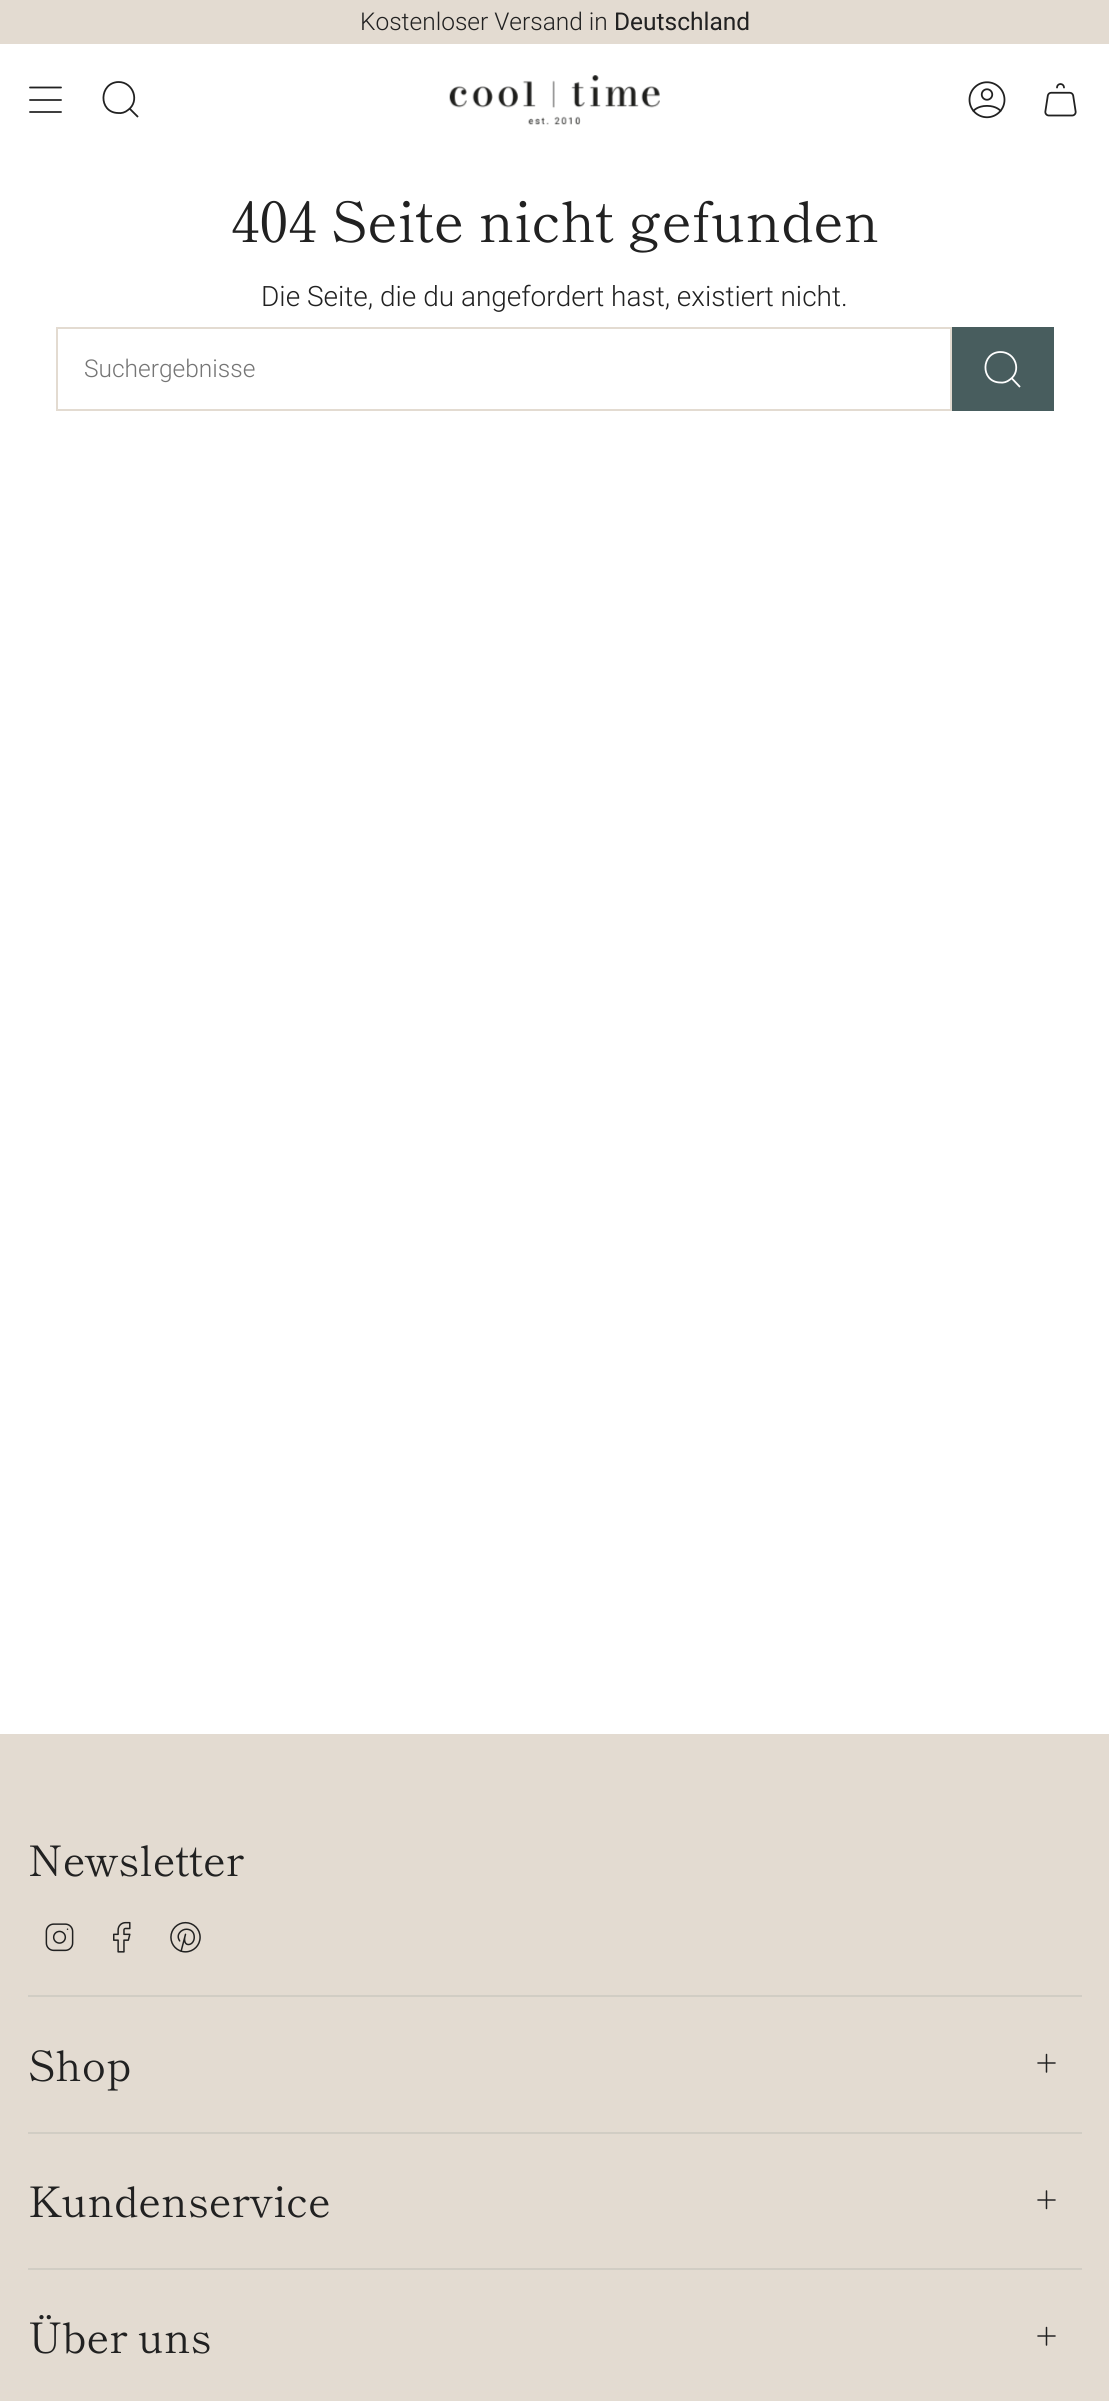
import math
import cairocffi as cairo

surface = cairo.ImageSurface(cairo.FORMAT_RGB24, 1109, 2401)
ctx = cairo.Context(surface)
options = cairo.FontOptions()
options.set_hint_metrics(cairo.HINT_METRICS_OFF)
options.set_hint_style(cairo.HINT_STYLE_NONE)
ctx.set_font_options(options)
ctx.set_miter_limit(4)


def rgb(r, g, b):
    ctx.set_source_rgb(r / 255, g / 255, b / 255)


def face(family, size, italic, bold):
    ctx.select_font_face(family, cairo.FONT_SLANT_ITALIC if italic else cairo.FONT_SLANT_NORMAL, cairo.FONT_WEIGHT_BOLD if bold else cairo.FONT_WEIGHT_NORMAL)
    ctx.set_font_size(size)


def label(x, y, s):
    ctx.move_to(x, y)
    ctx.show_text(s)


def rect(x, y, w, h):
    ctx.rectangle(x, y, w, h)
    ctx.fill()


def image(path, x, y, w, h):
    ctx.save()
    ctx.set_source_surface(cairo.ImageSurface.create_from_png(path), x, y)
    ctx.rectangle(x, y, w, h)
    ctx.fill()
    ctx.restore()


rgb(255, 255, 255)
ctx.paint()
rgb(227, 219, 209)
rect(0, 0, 1109, 44)
face('Roboto Light', 24.5, 0, 0)
rgb(33, 33, 33)
label(360, 30, 'Kostenloser Versand in')
face('Roboto', 24.5, 0, 0)
label(614, 30, 'Deutschland')
ctx.new_path()
ctx.move_to(30, 87.5)
ctx.line_to(61, 87.5)
ctx.move_to(30, 100)
ctx.line_to(61, 100)
ctx.move_to(30, 112)
ctx.line_to(61, 112)
ctx.set_line_width(1.8)
ctx.set_line_cap(cairo.LINE_CAP_ROUND)
ctx.set_line_join(cairo.LINE_JOIN_ROUND)
ctx.stroke()
ctx.new_path()
ctx.move_to(118.5, 82)
ctx.curve_to(133.5, 82, 140, 101.5, 128, 110)
ctx.curve_to(125, 112.5, 121.5, 113.5, 118, 113)
ctx.curve_to(98, 112.5, 99, 82.5, 118.5, 82)
ctx.close_path()
ctx.move_to(129.5, 108.5)
ctx.line_to(138, 117)
ctx.set_line_cap(cairo.LINE_CAP_BUTT)
ctx.set_line_join(cairo.LINE_JOIN_MITER)
ctx.stroke()
image('image0.png', 449, 75, 211, 50)
image('image1.png', 968, 81, 38, 38)
image('image2.png', 1044, 83, 33, 34)
face('Shippori Mincho', 56, 0, 0)
label(231, 242, '404 Seite nicht gefunden')
face('Roboto Light', 28, 0, 0)
label(261, 306, 'Die Seite, die du angefordert hast, existiert nicht.')
ctx.rectangle(57, 328, 894, 82)
rgb(227, 219, 209)
ctx.set_line_width(2)
ctx.stroke()
face('Roboto Light', 24.5, 0, 0)
rgb(117, 117, 117)
label(84, 377, 'Suchergebnisse')
rgb(72, 93, 94)
rect(952, 327, 102, 84)
ctx.new_path()
ctx.move_to(1000.5, 352)
ctx.curve_to(1015.5, 352, 1022, 371, 1010, 379.5)
ctx.curve_to(1007, 382, 1003.5, 383, 1000, 382.5)
ctx.curve_to(980, 382, 981, 352, 1000.5, 352)
ctx.close_path()
ctx.move_to(1011.5, 378)
ctx.line_to(1020, 387)
rgb(255, 255, 255)
ctx.set_line_width(1.8)
ctx.stroke()
rgb(227, 219, 209)
rect(0, 1734, 1109, 667)
face('Shippori Mincho', 42, 0, 0)
rgb(33, 33, 33)
label(28, 1876, 'Newsletter')
image('image3.png', 45, 1923, 29, 29)
image('image4.png', 113, 1921, 18, 32)
image('image5.png', 170, 1921, 31, 32)
rgb(209, 205, 196)
rect(28, 1995, 1054, 2)
rect(28, 2132, 1054, 2)
rgb(33, 33, 33)
label(28, 2081, 'Shop')
ctx.new_path()
ctx.move_to(1038, 2063)
ctx.line_to(1046.5, 2063)
ctx.move_to(1055, 2063)
ctx.line_to(1046.5, 2063)
ctx.move_to(1046.5, 2063)
ctx.line_to(1046.5, 2054.5)
ctx.move_to(1046.5, 2063)
ctx.line_to(1046.5, 2072)
ctx.set_line_width(1.5)
ctx.set_line_cap(cairo.LINE_CAP_ROUND)
ctx.set_line_join(cairo.LINE_JOIN_ROUND)
ctx.stroke()
rgb(209, 205, 196)
rect(28, 2268, 1054, 2)
rgb(33, 33, 33)
label(28, 2217, 'Kundenservice')
ctx.new_path()
ctx.move_to(1038, 2200)
ctx.line_to(1046.5, 2200)
ctx.move_to(1055, 2200)
ctx.line_to(1046.5, 2200)
ctx.move_to(1046.5, 2200)
ctx.line_to(1046.5, 2191)
ctx.move_to(1046.5, 2200)
ctx.line_to(1046.5, 2208.5)
ctx.stroke()
label(28, 2353, 'Über uns')
ctx.new_path()
ctx.move_to(1038, 2336)
ctx.line_to(1046.5, 2336)
ctx.move_to(1055, 2336)
ctx.line_to(1046.5, 2336)
ctx.move_to(1046.5, 2336)
ctx.line_to(1046.5, 2327.5)
ctx.move_to(1046.5, 2336)
ctx.line_to(1046.5, 2345)
ctx.stroke()
surface.write_to_png('render.png')
